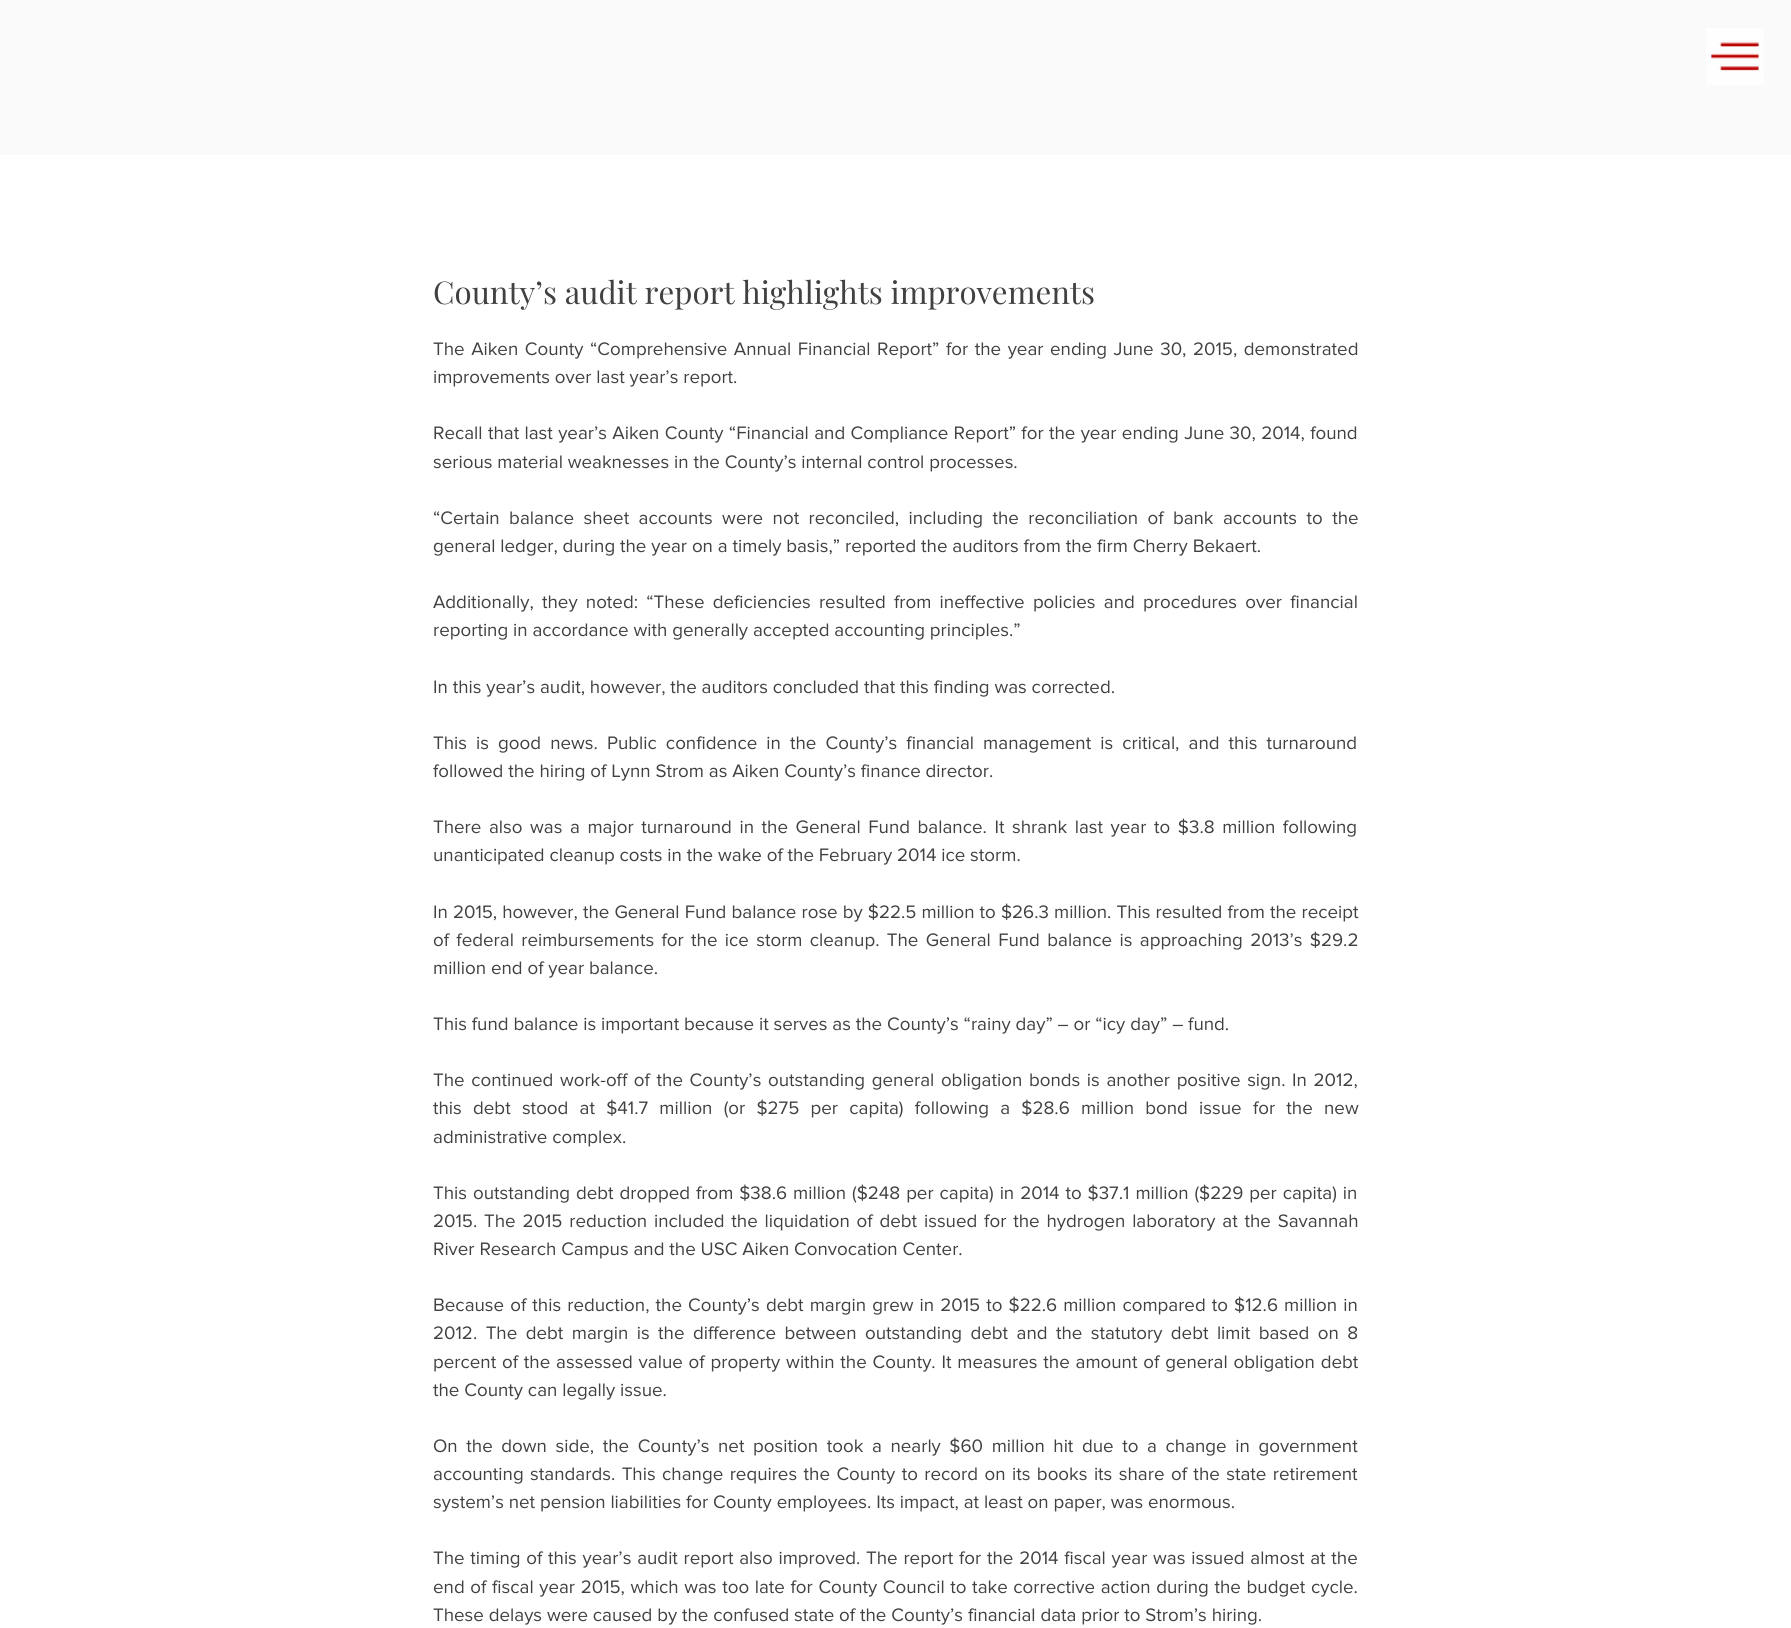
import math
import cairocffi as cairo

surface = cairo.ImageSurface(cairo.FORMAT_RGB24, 1791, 1628)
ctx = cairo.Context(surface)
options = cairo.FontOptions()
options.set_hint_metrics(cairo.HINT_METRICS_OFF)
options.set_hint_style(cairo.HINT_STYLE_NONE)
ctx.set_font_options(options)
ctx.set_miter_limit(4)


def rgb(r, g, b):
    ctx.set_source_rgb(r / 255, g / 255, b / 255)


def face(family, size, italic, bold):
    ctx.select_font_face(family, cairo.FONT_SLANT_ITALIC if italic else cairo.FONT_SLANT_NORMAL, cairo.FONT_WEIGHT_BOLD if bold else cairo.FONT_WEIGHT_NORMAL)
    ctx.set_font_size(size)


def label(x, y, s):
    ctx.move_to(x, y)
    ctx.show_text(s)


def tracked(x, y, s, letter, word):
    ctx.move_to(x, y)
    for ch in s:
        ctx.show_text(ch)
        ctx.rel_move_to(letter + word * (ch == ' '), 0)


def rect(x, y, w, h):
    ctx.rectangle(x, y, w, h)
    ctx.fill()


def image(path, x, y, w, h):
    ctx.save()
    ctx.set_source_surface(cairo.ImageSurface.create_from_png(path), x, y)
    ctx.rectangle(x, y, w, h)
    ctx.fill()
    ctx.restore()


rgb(255, 255, 255)
ctx.paint()
rgb(250, 250, 250)
rect(0, 0, 1791, 155)
image('image0.png', 1706, 28, 58, 57)
face('Playfair Display', 31.25, 0, 0)
rgb(65, 65, 65)
label(433, 304, 'County’s audit report highlights improvements')
face('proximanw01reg', 18.75, 0, 0)
tracked(433, 355, 'The Aiken County “Comprehensive Annual Financial Report” for the year ending June 30, 2015, demonstrated', 0, 1.7)
label(433, 383, 'improvements over last year’s report.')
tracked(433, 439, 'Recall that last year’s Aiken County “Financial and Compliance Report” for the year ending June 30, 2014, found', 0, 0.5)
label(433, 468, 'serious material weaknesses in the County’s internal control processes.')
tracked(433, 524, '“Certain balance sheet accounts were not reconciled, including the reconciliation of bank accounts to the', 0, 4.6)
label(433, 552, 'general ledger, during the year on a timely basis,” reported the auditors from the firm Cherry Bekaert.')
tracked(433, 608, 'Additionally, they noted: “These deficiencies resulted from ineffective policies and procedures over financial', 0, 3.4)
label(433, 636, 'reporting in accordance with generally accepted accounting principles.”')
label(433, 693, 'In this year’s audit, however, the auditors concluded that this finding was corrected.')
tracked(433, 749, 'This is good news. Public confidence in the County’s financial management is critical, and this turnaround', 0, 4.25)
label(433, 777, 'followed the hiring of Lynn Strom as Aiken County’s finance director.')
tracked(433, 833, 'There also was a major turnaround in the General Fund balance. It shrank last year to $3.8 million following', 0, 2.75)
label(433, 861, 'unanticipated cleanup costs in the wake of the February 2014 ice storm.')
tracked(433, 918, 'In 2015, however, the General Fund balance rose by $22.5 million to $26.3 million. This resulted from the receipt', 0, 0.25)
tracked(433, 946, 'of federal reimbursements for the ice storm cleanup. The General Fund balance is approaching 2013’s $29.2', 0, 2.5)
label(433, 974, 'million end of year balance.')
label(433, 1030, 'This fund balance is important because it serves as the County’s “rainy day” – or “icy day” – fund.')
tracked(433, 1086, 'The continued work-off of the County’s outstanding general obligation bonds is another positive sign. In 2012,', 0, 1.8)
tracked(433, 1114, 'this debt stood at $41.7 million (or $275 per capita) following a $28.6 million bond issue for the new', 0, 6.4)
label(433, 1143, 'administrative complex.')
tracked(433, 1199, 'This outstanding debt dropped from $38.6 million ($248 per capita) in 2014 to $37.1 million ($229 per capita) in', 0, 1.1)
tracked(433, 1227, '2015. The 2015 reduction included the liquidation of debt issued for the hydrogen laboratory at the Savannah', 0, 2)
label(433, 1255, 'River Research Campus and the USC Aiken Convocation Center.')
tracked(433, 1311, 'Because of this reduction, the County’s debt margin grew in 2015 to $22.6 million compared to $12.6 million in', 0, 1.25)
tracked(433, 1339, '2012. The debt margin is the difference between outstanding debt and the statutory debt limit based on 8', 0, 3.6)
tracked(433, 1368, 'percent of the assessed value of property within the County. It measures the amount of general obligation debt', 0, 1)
label(433, 1396, 'the County can legally issue.')
tracked(433, 1452, 'On the down side, the County’s net position took a nearly $60 million hit due to a change in government', 0, 3.75)
tracked(433, 1480, 'accounting standards. This change requires the County to record on its books its share of the state retirement', 0, 1.6)
label(433, 1508, 'system’s net pension liabilities for County employees. Its impact, at least on paper, was enormous.')
tracked(433, 1564, 'The timing of this year’s audit report also improved. The report for the 2014 fiscal year was issued almost at the', 0, 0.9)
tracked(433, 1593, 'end of fiscal year 2015, which was too late for County Council to take corrective action during the budget cycle.', 0, 0.8)
label(433, 1621, 'These delays were caused by the confused state of the County’s financial data prior to Strom’s hiring.')
surface.write_to_png('render.png')
